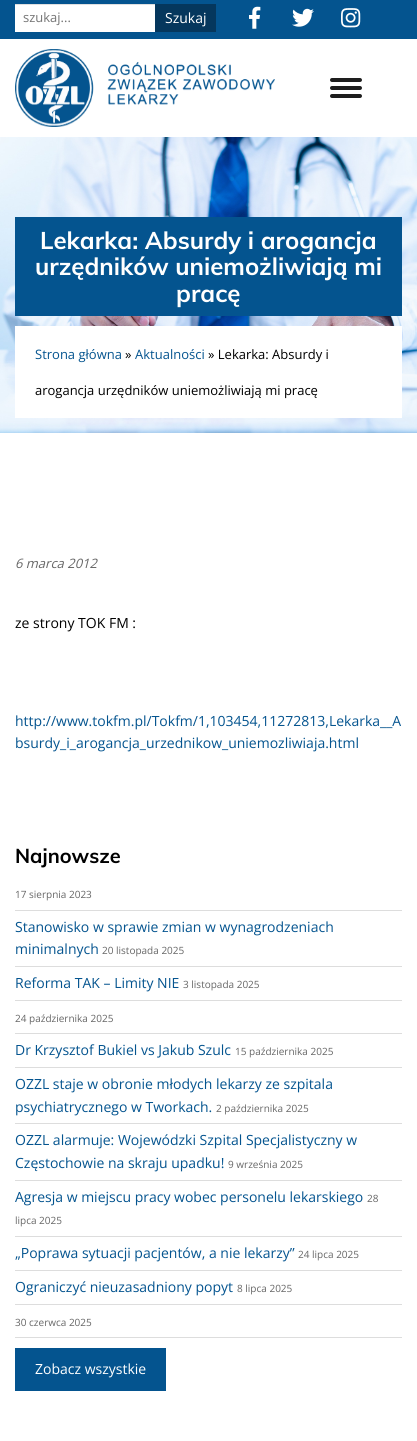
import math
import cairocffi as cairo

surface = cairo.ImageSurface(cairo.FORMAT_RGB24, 417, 1441)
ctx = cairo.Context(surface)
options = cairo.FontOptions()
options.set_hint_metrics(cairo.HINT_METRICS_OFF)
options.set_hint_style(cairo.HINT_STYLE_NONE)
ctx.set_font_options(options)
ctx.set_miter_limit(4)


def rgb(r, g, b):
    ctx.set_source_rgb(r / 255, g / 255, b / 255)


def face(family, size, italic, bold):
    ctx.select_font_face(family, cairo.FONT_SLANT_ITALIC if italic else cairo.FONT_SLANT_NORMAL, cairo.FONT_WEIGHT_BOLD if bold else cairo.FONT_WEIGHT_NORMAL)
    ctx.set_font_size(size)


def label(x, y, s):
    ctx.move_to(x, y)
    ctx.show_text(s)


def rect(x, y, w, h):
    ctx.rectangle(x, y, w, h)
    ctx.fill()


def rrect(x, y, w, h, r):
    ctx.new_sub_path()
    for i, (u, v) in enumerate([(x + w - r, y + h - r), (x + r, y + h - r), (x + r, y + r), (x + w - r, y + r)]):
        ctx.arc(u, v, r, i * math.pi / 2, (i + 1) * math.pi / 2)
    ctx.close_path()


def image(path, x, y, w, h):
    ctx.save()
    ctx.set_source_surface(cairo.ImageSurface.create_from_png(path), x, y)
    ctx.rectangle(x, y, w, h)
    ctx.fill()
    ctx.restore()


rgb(255, 255, 255)
ctx.paint()
rgb(4, 84, 143)
rect(0, 0, 417, 39)
rgb(255, 255, 255)
rect(15, 5, 140, 27)
rgb(223, 223, 223)
rect(15, 4, 140, 1)
face('Open Sans', 13, 0, 0)
rgb(117, 117, 117)
label(23, 22, 'szukaj...')
rgb(5, 55, 93)
rect(155, 4, 61, 28)
face('Open Sans', 14, 0, 0)
rgb(255, 255, 255)
label(165, 23, 'Szukaj')
image('image0.png', 249, 6, 12, 23)
image('image1.png', 292, 8, 22, 19)
image('image2.png', 341, 8, 20, 20)
image('image3.png', 15, 49, 260, 78)
rgb(30, 30, 30)
rrect(330, 78, 32, 4, 2)
ctx.fill()
rrect(330, 86, 32, 4, 2)
ctx.fill()
rrect(330, 94, 32, 4, 2)
ctx.fill()
image('image4.png', 0, 137, 417, 296)
rgb(4, 84, 143)
rect(15, 217, 387, 99)
face('Muli', 24, 0, 1)
rgb(255, 255, 255)
label(40, 249, 'Lekarka: Absurdy i arogancja')
label(35, 275, 'urzędników uniemożliwiają mi')
label(176, 302, 'pracę')
rect(15, 326, 387, 92)
face('Open Sans', 13, 0, 0)
rgb(4, 84, 143)
label(35, 359, 'Strona główna')
rgb(0, 0, 0)
label(125, 359, '»')
rgb(4, 84, 143)
label(135, 359, 'Aktualności')
rgb(0, 0, 0)
label(208, 359, '» Lekarka: Absurdy i')
label(35, 395, 'arogancja urzędników uniemożliwiają mi pracę')
face('Open Sans', 13, 1, 0)
rgb(102, 102, 102)
label(15, 568, '6 marca 2012')
face('Open Sans', 14, 0, 0)
rgb(0, 0, 0)
label(15, 628, 'ze strony TOK FM :')
rgb(4, 84, 143)
label(15, 726, 'http://www.tokfm.pl/Tokfm/1,103454,11272813,Lekarka__A')
label(15, 748, 'bsurdy_i_arogancja_urzednikow_uniemozliwiaja.html')
face('Muli', 20, 0, 1)
rgb(0, 0, 0)
label(15, 863, 'Najnowsze')
rgb(221, 221, 221)
rect(15, 910, 387, 1)
face('Open Sans', 10, 0, 0)
rgb(102, 102, 102)
label(15, 898, '17 sierpnia 2023')
rgb(221, 221, 221)
rect(15, 966, 387, 1)
face('Open Sans', 14, 0, 0)
rgb(4, 84, 143)
label(15, 932, 'Stanowisko w sprawie zmian w wynagrodzeniach')
label(15, 954, 'minimalnych')
face('Open Sans', 10, 0, 0)
rgb(102, 102, 102)
label(102, 954, '20 listopada 2025')
rgb(221, 221, 221)
rect(15, 1000, 387, 1)
face('Open Sans', 14, 0, 0)
rgb(4, 84, 143)
label(15, 988, 'Reforma TAK – Limity NIE')
face('Open Sans', 10, 0, 0)
rgb(102, 102, 102)
label(183, 988, '3 listopada 2025')
rgb(221, 221, 221)
rect(15, 1033, 387, 1)
rgb(102, 102, 102)
label(15, 1022, '24 października 2025')
rgb(221, 221, 221)
rect(15, 1067, 387, 1)
face('Open Sans', 14, 0, 0)
rgb(4, 84, 143)
label(15, 1055, 'Dr Krzysztof Bukiel vs Jakub Szulc')
face('Open Sans', 10, 0, 0)
rgb(102, 102, 102)
label(235, 1055, '15 października 2025')
rgb(221, 221, 221)
rect(15, 1123, 387, 1)
face('Open Sans', 14, 0, 0)
rgb(4, 84, 143)
label(15, 1089, 'OZZL staje w obronie młodych lekarzy ze szpitala')
label(15, 1112, 'psychiatrycznego w Tworkach.')
face('Open Sans', 10, 0, 0)
rgb(102, 102, 102)
label(216, 1112, '2 października 2025')
rgb(221, 221, 221)
rect(15, 1180, 387, 1)
face('Open Sans', 14, 0, 0)
rgb(4, 84, 143)
label(15, 1145, 'OZZL alarmuje: Wojewódzki Szpital Specjalistyczny w')
label(15, 1168, 'Częstochowie na skraju upadku!')
face('Open Sans', 10, 0, 0)
rgb(102, 102, 102)
label(228, 1168, '9 września 2025')
rgb(221, 221, 221)
rect(15, 1236, 387, 1)
face('Open Sans', 14, 0, 0)
rgb(4, 84, 143)
label(15, 1202, 'Agresja w miejscu pracy wobec personelu lekarskiego')
face('Open Sans', 10, 0, 0)
rgb(102, 102, 102)
label(367, 1202, '28')
label(15, 1224, 'lipca 2025')
rgb(221, 221, 221)
rect(15, 1270, 387, 1)
face('Open Sans', 14, 0, 0)
rgb(4, 84, 143)
label(15, 1258, '„Poprawa sytuacji pacjentów, a nie lekarzy”')
face('Open Sans', 10, 0, 0)
rgb(102, 102, 102)
label(298, 1258, '24 lipca 2025')
rgb(221, 221, 221)
rect(15, 1304, 387, 1)
face('Open Sans', 14, 0, 0)
rgb(4, 84, 143)
label(15, 1292, 'Ograniczyć nieuzasadniony popyt')
face('Open Sans', 10, 0, 0)
rgb(102, 102, 102)
label(237, 1292, '8 lipca 2025')
rgb(221, 221, 221)
rect(15, 1337, 387, 1)
rgb(102, 102, 102)
label(15, 1326, '30 czerwca 2025')
rgb(4, 84, 143)
rect(15, 1348, 151, 43)
face('Open Sans', 14, 0, 0)
rgb(255, 255, 255)
label(35, 1374, 'Zobacz wszystkie')
surface.write_to_png('render.png')
